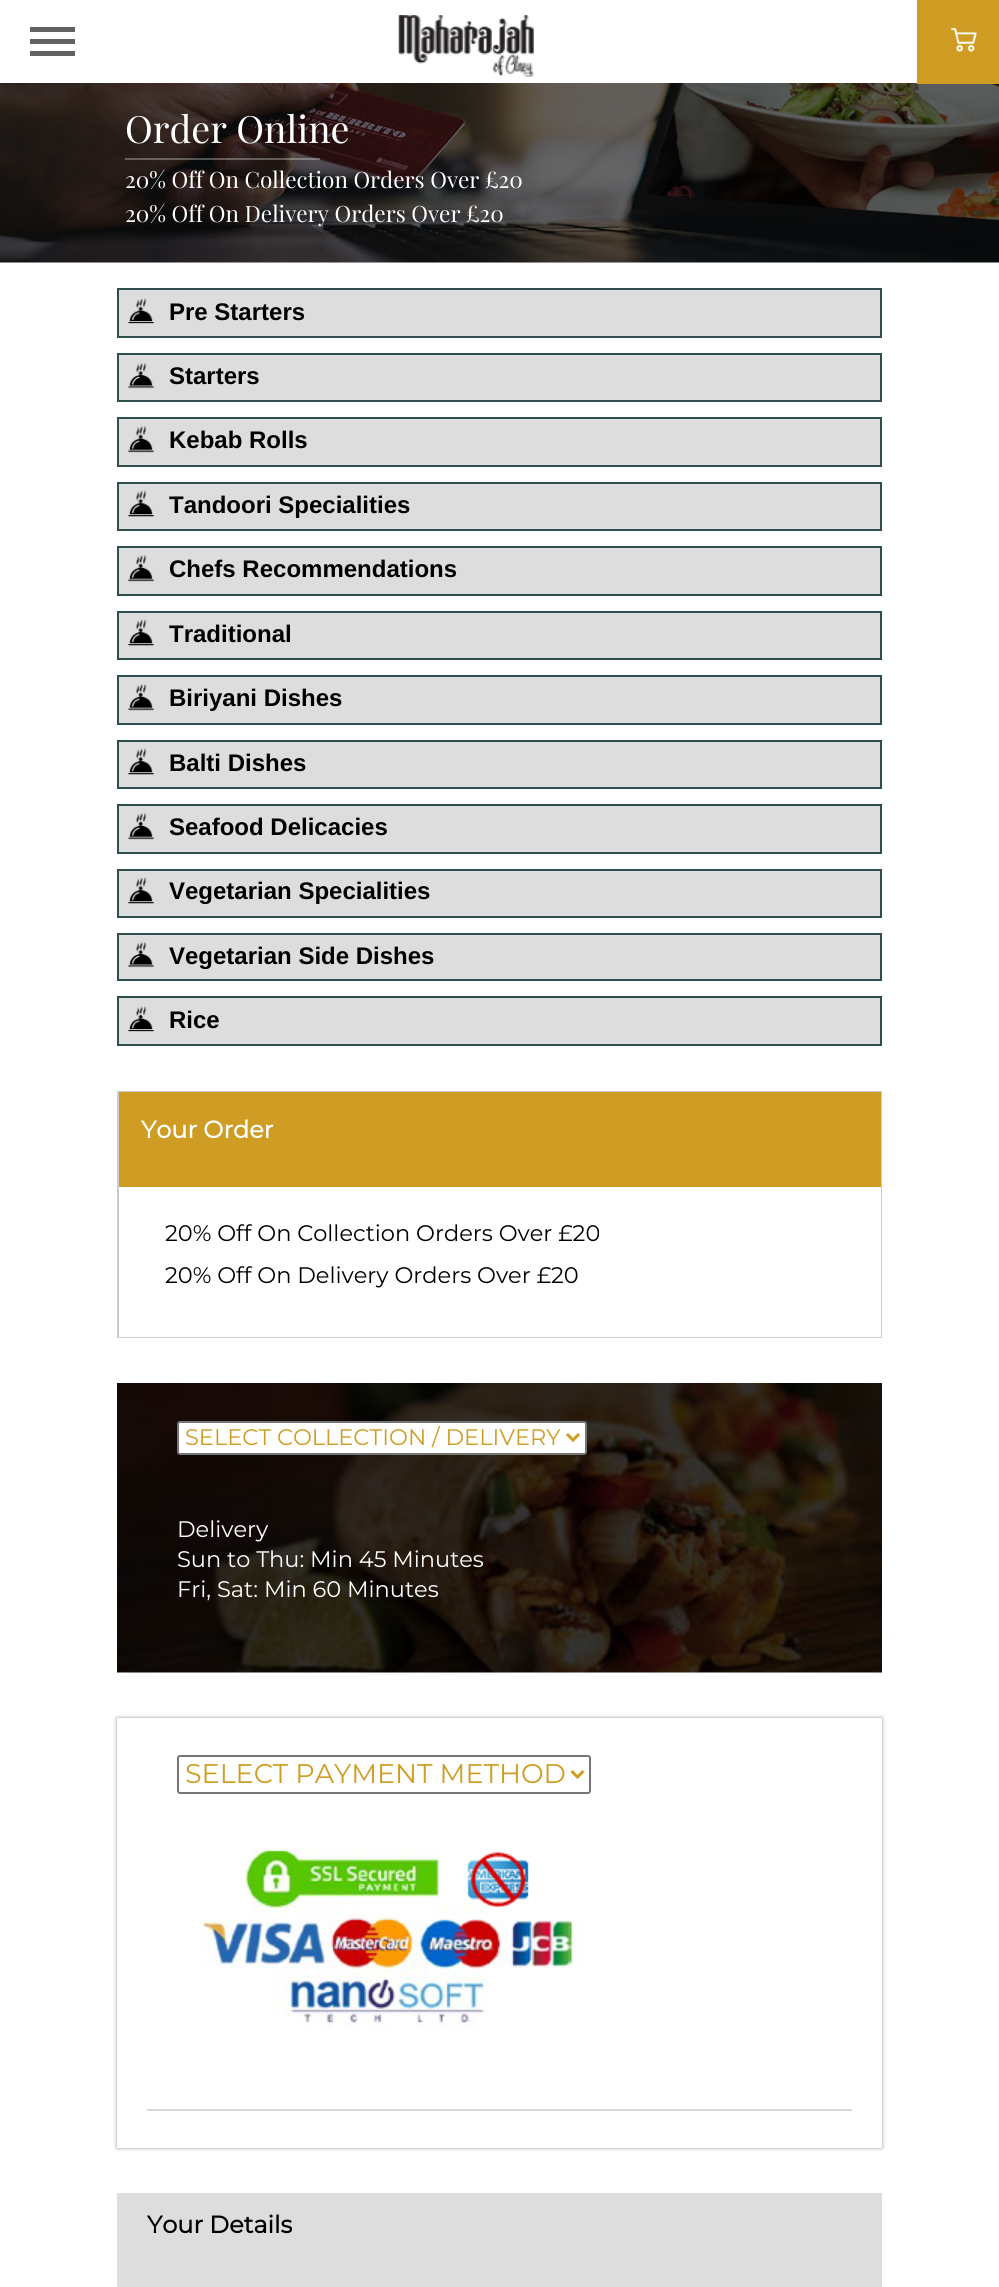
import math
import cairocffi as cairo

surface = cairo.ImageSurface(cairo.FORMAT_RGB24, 999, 2287)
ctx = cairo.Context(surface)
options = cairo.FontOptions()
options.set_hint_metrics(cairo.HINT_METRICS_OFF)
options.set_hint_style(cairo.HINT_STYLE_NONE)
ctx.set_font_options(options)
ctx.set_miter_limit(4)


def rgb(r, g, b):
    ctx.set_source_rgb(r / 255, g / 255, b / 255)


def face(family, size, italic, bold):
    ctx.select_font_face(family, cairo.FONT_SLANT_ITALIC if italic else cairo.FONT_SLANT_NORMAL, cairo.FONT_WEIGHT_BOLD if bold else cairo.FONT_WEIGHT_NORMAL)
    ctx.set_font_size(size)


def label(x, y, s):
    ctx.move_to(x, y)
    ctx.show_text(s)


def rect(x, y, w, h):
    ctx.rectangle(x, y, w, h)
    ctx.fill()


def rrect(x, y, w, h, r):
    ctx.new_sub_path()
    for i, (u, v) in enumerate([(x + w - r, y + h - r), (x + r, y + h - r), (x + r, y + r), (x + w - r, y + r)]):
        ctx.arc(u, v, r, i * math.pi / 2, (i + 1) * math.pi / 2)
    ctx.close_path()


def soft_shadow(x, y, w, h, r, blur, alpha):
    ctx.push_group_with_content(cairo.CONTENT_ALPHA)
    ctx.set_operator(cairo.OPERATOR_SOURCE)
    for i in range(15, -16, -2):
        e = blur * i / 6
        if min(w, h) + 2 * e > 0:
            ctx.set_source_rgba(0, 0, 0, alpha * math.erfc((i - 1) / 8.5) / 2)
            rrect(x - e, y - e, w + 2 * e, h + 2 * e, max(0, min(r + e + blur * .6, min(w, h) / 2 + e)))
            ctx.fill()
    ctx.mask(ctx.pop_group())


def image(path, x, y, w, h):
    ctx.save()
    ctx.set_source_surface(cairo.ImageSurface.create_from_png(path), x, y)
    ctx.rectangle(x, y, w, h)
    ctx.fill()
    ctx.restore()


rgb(255, 255, 255)
ctx.paint()
rgb(97, 97, 96)
rect(30, 27, 45, 5)
rect(30, 39, 45, 5)
rect(30, 51, 45, 5)
image('image0.png', 398, 15, 136, 62)
image('image2.png', 0, 83, 999, 180)
rgb(207, 157, 36)
rect(917, 0, 82, 84)
image('image1.png', 951, 27, 26, 25)
face('Playfair Display', 37.5, 0, 0)
rgb(255, 255, 255)
label(125, 143, 'Order Online')
ctx.set_source_rgba(1, 1, 1, 0.3)
rect(125, 158, 195, 2)
face('Playfair Display', 22.5, 0, 0)
rgb(255, 255, 255)
label(125, 188, '20% Off On Collection Orders Over £20')
label(125, 222, '20% Off On Delivery Orders Over £20')
rgb(221, 221, 221)
ctx.rectangle(118, 289, 763, 48)
ctx.fill_preserve()
rgb(47, 79, 79)
ctx.stroke()
image('image3.png', 128, 298, 27, 26)
face('Liberation Sans', 24, 0, 1)
rgb(0, 0, 0)
label(169, 320, 'Pre Starters')
rgb(221, 221, 221)
ctx.rectangle(118, 354, 763, 47)
ctx.fill_preserve()
rgb(47, 79, 79)
ctx.stroke()
image('image4.png', 128, 363, 26, 26)
rgb(0, 0, 0)
label(169, 384, 'Starters')
rgb(221, 221, 221)
ctx.rectangle(118, 418, 763, 48)
ctx.fill_preserve()
rgb(47, 79, 79)
ctx.stroke()
image('image5.png', 128, 426, 27, 27)
rgb(0, 0, 0)
label(169, 448, 'Kebab Rolls')
rgb(221, 221, 221)
ctx.rectangle(118, 483, 763, 47)
ctx.fill_preserve()
rgb(47, 79, 79)
ctx.stroke()
image('image6.png', 128, 490, 27, 27)
rgb(0, 0, 0)
label(169, 513, 'Tandoori Specialities')
rgb(221, 221, 221)
ctx.rectangle(118, 547, 763, 48)
ctx.fill_preserve()
rgb(47, 79, 79)
ctx.stroke()
image('image5.png', 128, 555, 27, 27)
rgb(0, 0, 0)
label(169, 577, 'Chefs Recommendations')
rgb(221, 221, 221)
ctx.rectangle(118, 612, 763, 47)
ctx.fill_preserve()
rgb(47, 79, 79)
ctx.stroke()
image('image6.png', 128, 619, 27, 27)
rgb(0, 0, 0)
label(169, 642, 'Traditional')
rgb(221, 221, 221)
ctx.rectangle(118, 676, 763, 48)
ctx.fill_preserve()
rgb(47, 79, 79)
ctx.stroke()
image('image5.png', 128, 684, 27, 27)
rgb(0, 0, 0)
label(169, 706, 'Biriyani Dishes')
rgb(221, 221, 221)
ctx.rectangle(118, 741, 763, 47)
ctx.fill_preserve()
rgb(47, 79, 79)
ctx.stroke()
image('image6.png', 128, 748, 27, 27)
rgb(0, 0, 0)
label(169, 771, 'Balti Dishes')
rgb(221, 221, 221)
ctx.rectangle(118, 805, 763, 48)
ctx.fill_preserve()
rgb(47, 79, 79)
ctx.stroke()
image('image5.png', 128, 813, 27, 27)
rgb(0, 0, 0)
label(169, 835, 'Seafood Delicacies')
rgb(221, 221, 221)
ctx.rectangle(118, 870, 763, 47)
ctx.fill_preserve()
rgb(47, 79, 79)
ctx.stroke()
image('image6.png', 128, 877, 27, 27)
rgb(0, 0, 0)
label(169, 899, 'Vegetarian Specialities')
rgb(221, 221, 221)
ctx.rectangle(118, 934, 763, 46)
ctx.fill_preserve()
rgb(47, 79, 79)
ctx.stroke()
image('image4.png', 128, 942, 26, 26)
rgb(0, 0, 0)
label(169, 964, 'Vegetarian Side Dishes')
rgb(221, 221, 221)
ctx.rectangle(118, 997, 763, 48)
ctx.fill_preserve()
rgb(47, 79, 79)
ctx.stroke()
image('image3.png', 128, 1006, 27, 26)
rgb(0, 0, 0)
label(169, 1028, 'Rice')
ctx.rectangle(118, 1092, 763, 245)
rgb(204, 204, 204)
ctx.stroke()
rgb(207, 157, 36)
rect(119, 1092, 762, 95)
face('Montserrat', 24, 0, 1)
rgb(255, 255, 255)
label(141, 1138, 'Your Order')
rect(119, 1187, 762, 150)
face('Montserrat Thin', 22.5, 0, 0)
rgb(0, 0, 0)
label(165, 1241, '20% Off On Collection Orders Over £20')
label(165, 1283, '20% Off On Delivery Orders Over £20')
image('image7.png', 117, 1383, 765, 290)
rgb(255, 255, 255)
rrect(178, 1422, 408, 32, 2)
ctx.fill_preserve()
rgb(118, 118, 118)
ctx.stroke()
ctx.new_path()
ctx.move_to(567, 1434)
ctx.line_to(573, 1440)
ctx.line_to(579, 1434)
rgb(207, 157, 36)
ctx.set_line_width(3)
ctx.stroke()
label(185, 1445, 'SELECT COLLECTION / DELIVERY')
rgb(255, 255, 255)
label(177, 1537, 'Delivery')
label(177, 1567, 'Sun to Thu: Min 45 Minutes')
label(177, 1597, 'Fri, Sat: Min 60 Minutes')
ctx.save()
ctx.set_fill_rule(cairo.FILL_RULE_EVEN_ODD)
ctx.new_path()
ctx.move_to(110, 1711)
ctx.line_to(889, 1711)
ctx.line_to(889, 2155)
ctx.line_to(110, 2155)
ctx.close_path()
ctx.move_to(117, 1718)
ctx.line_to(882, 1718)
ctx.line_to(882, 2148)
ctx.line_to(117, 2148)
ctx.close_path()
ctx.clip()
rgb(156, 156, 156)
soft_shadow(117, 1718, 765, 430, 0, 2, 1)
ctx.restore()
rgb(216, 216, 216)
rect(147, 2109, 705, 2)
rrect(178, 1756, 412, 37, 2)
rgb(118, 118, 118)
ctx.set_line_width(2)
ctx.stroke()
ctx.new_path()
ctx.move_to(571.5, 1771)
ctx.line_to(577.5, 1777)
ctx.line_to(583.5, 1771)
rgb(207, 157, 36)
ctx.set_line_width(3)
ctx.stroke()
face('Montserrat Thin', 27, 0, 0)
label(185, 1783, 'SELECT PAYMENT METHOD')
image('image8.png', 201, 1848, 384, 184)
rgb(221, 221, 221)
rect(117, 2193, 765, 94)
face('Montserrat', 24, 0, 1)
rgb(0, 0, 0)
label(147, 2233, 'Your Details')
surface.write_to_png('render.png')
